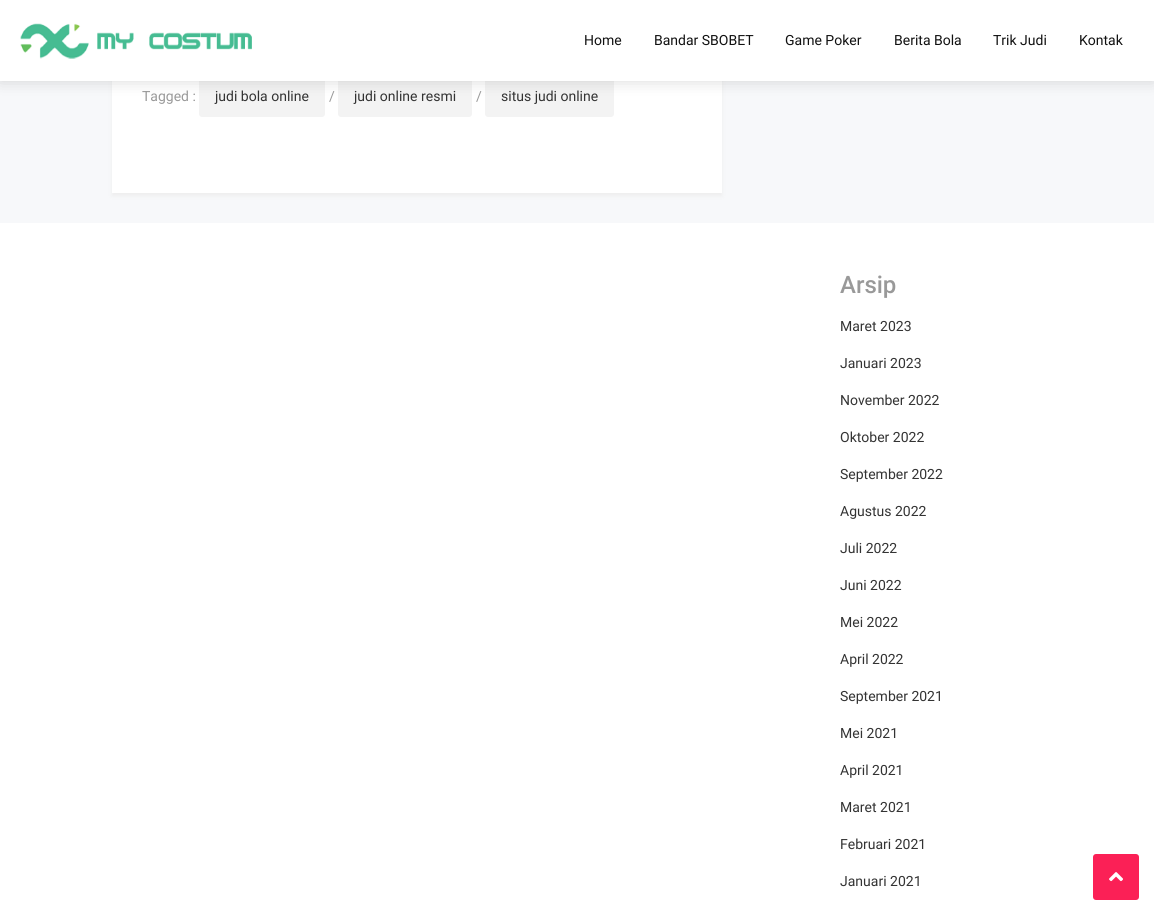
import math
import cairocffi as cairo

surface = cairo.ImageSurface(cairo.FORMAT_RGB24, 1154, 915)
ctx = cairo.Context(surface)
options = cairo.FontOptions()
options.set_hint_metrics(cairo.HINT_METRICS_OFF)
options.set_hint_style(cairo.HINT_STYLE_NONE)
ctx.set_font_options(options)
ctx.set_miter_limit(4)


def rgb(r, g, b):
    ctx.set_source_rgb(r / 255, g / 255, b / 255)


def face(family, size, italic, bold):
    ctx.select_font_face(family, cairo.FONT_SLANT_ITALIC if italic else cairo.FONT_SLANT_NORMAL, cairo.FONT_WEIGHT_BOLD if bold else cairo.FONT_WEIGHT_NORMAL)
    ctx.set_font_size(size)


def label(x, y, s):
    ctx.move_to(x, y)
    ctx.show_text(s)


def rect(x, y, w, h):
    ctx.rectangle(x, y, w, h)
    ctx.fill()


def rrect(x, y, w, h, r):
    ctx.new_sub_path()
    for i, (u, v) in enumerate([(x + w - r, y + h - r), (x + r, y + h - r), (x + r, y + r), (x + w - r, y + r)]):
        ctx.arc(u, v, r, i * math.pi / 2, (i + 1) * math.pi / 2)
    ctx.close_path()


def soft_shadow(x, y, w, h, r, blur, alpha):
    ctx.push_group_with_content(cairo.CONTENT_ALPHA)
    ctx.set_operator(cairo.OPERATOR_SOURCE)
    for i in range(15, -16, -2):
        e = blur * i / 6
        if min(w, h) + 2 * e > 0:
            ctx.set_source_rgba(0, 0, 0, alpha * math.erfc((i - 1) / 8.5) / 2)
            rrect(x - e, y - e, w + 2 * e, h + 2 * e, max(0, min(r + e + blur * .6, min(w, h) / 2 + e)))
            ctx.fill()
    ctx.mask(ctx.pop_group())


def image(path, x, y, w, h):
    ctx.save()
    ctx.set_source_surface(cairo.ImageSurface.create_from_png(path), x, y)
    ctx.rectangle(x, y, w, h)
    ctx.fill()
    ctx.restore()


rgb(247, 248, 250)
ctx.paint()
rgb(238, 238, 238)
soft_shadow(112, -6, 610, 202, 0, 2, 1)
rgb(255, 255, 255)
rect(112, 81, 610, 112)
rgb(243, 243, 243)
rrect(199, 76, 126, 41, 3)
ctx.fill()
rrect(338, 76, 134, 41, 3)
ctx.fill()
rrect(485, 76, 129, 41, 3)
ctx.fill()
rgb(0, 0, 0)
soft_shadow(0, 0, 1154, 81, 0, 8, 0.15)
rgb(255, 255, 255)
rect(0, 0, 1154, 81)
image('image0.png', 20, 23, 232, 36)
face('Roboto', 14, 0, 0)
rgb(17, 17, 17)
label(584, 45, 'Home')
label(654, 45, 'Bandar SBOBET')
label(785, 45, 'Game Poker')
label(894, 45, 'Berita Bola')
label(993, 45, 'Trik Judi')
label(1079, 45, 'Kontak')
rgb(153, 153, 153)
label(142, 101, 'Tagged :')
rgb(51, 51, 51)
label(215, 101, 'judi bola online')
rgb(153, 153, 153)
label(329, 101, '/')
rgb(51, 51, 51)
label(354, 101, 'judi online resmi')
rgb(153, 153, 153)
label(476, 101, '/')
rgb(51, 51, 51)
label(501, 101, 'situs judi online')
rgb(255, 255, 255)
rect(0, 223, 1154, 692)
face('Roboto Medium', 24, 0, 0)
rgb(153, 153, 153)
label(840, 293, 'Arsip')
face('Roboto', 14, 0, 0)
rgb(51, 51, 51)
label(840, 331, 'Maret 2023')
label(840, 368, 'Januari 2023')
label(840, 405, 'November 2022')
label(840, 442, 'Oktober 2022')
label(840, 479, 'September 2022')
label(840, 516, 'Agustus 2022')
label(840, 553, 'Juli 2022')
label(840, 590, 'Juni 2022')
label(840, 627, 'Mei 2022')
label(840, 664, 'April 2022')
label(840, 701, 'September 2021')
label(840, 738, 'Mei 2021')
label(840, 775, 'April 2021')
label(840, 812, 'Maret 2021')
label(840, 849, 'Februari 2021')
label(840, 886, 'Januari 2021')
rgb(251, 32, 86)
rrect(1093, 854, 46, 46, 3)
ctx.fill()
image('image1.png', 1109, 872, 14, 10)
surface.write_to_png('render.png')
